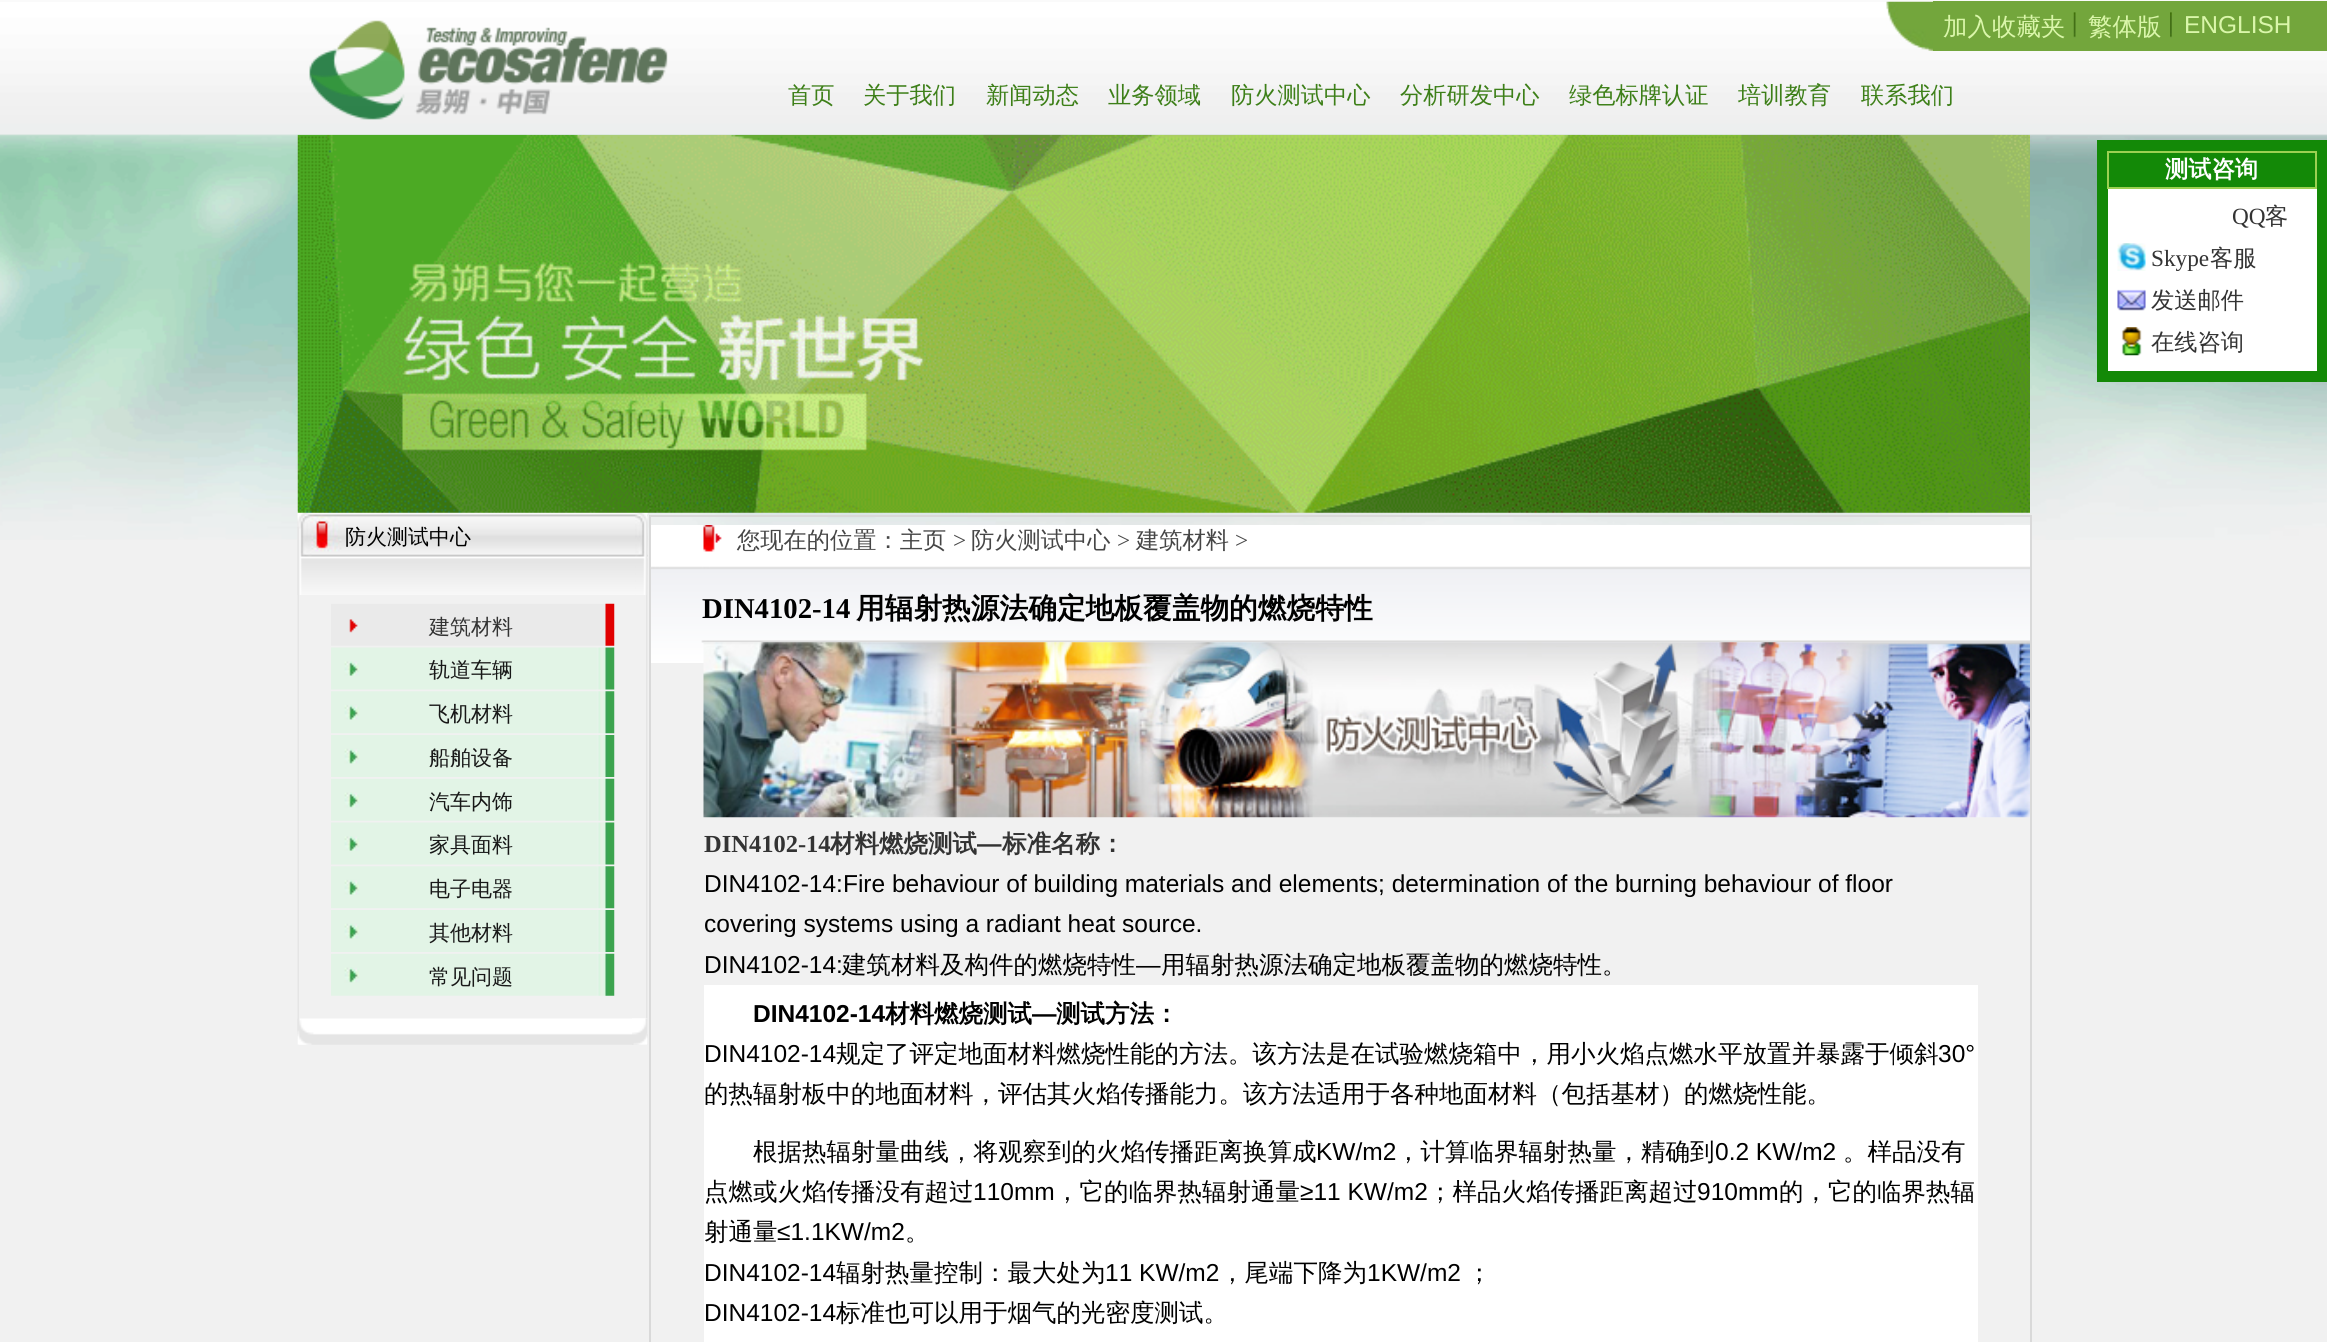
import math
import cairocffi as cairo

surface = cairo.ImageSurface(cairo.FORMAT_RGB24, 2327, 1342)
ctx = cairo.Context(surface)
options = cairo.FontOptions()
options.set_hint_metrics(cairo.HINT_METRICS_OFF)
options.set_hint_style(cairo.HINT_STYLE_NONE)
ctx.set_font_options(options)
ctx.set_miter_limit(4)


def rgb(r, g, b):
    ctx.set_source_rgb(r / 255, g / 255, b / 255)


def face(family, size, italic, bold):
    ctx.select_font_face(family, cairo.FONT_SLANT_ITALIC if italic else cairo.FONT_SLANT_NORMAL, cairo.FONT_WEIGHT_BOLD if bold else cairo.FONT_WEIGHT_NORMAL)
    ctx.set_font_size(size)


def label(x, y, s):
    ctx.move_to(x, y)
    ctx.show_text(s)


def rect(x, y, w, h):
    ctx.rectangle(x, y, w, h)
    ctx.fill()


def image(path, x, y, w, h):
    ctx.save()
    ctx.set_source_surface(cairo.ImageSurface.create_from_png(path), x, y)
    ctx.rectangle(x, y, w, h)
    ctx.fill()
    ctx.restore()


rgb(241, 241, 241)
ctx.paint()
image('image0.png', 0, 2, 2327, 538)
rgb(250, 250, 250)
rect(0, 0, 2327, 2)
image('image1.png', 1886, 1, 47, 50)
rgb(115, 166, 60)
rect(1933, 1, 394, 50)
face('WenQuanYi Zen Hei Medium', 24.5, 0, 0)
rgb(218, 246, 170)
label(1943, 35, '加入收藏夹')
image('image2.png', 2073, 12, 3, 27)
label(2088, 35, '繁体版')
image('image3.png', 2170, 12, 2, 27)
face('Liberation Sans', 24.5, 0, 0)
label(2184, 33, 'ENGLISH')
image('image4.png', 309, 20, 359, 100)
face('WenQuanYi Zen Hei Medium', 23.25, 0, 0)
rgb(61, 127, 24)
label(788, 103, '首页')
label(863, 103, '关于我们')
label(986, 103, '新闻动态')
label(1108, 103, '业务领域')
label(1231, 103, '防火测试中心')
label(1400, 103, '分析研发中心')
label(1569, 103, '绿色标牌认证')
label(1738, 103, '培训教育')
label(1861, 103, '联系我们')
image('image6.png', 297, 511, 2, 534)
image('image7.png', 646, 512, 2, 533)
image('image8.png', 297, 511, 351, 84)
image('image9.png', 635, 512, 13, 83)
image('image5.png', 297, 134, 1733, 379)
face('WenQuanYi Zen Hei Medium', 21, 0, 0)
rgb(0, 0, 0)
label(345, 544, '防火测试中心')
image('image10.png', 331, 603, 284, 43)
rgb(51, 51, 51)
label(429, 634, '建筑材料')
image('image11.png', 331, 647, 284, 43)
rgb(24, 24, 24)
label(429, 677, '轨道车辆')
image('image12.png', 331, 691, 284, 43)
label(429, 721, '飞机材料')
image('image13.png', 331, 735, 284, 42)
label(429, 765, '船舶设备')
image('image14.png', 331, 778, 284, 43)
label(429, 809, '汽车内饰')
image('image11.png', 331, 822, 284, 43)
label(429, 852, '家具面料')
image('image12.png', 331, 866, 284, 43)
label(429, 896, '电子电器')
image('image13.png', 331, 910, 284, 42)
label(429, 940, '其他材料')
image('image14.png', 331, 953, 284, 43)
label(429, 984, '常见问题')
image('image15.png', 297, 1018, 351, 27)
image('image16.png', 632, 1018, 16, 27)
rgb(217, 217, 217)
rect(649, 515, 1383, 2)
rect(2030, 515, 2, 827)
rect(649, 515, 2, 827)
image('image17.png', 651, 525, 1379, 138)
face('WenQuanYi Zen Hei Medium', 23.25, 0, 0)
rgb(70, 70, 70)
label(737, 548, '您现在的位置：主页')
face('Liberation Serif', 23.25, 0, 0)
label(953, 548, '>')
face('WenQuanYi Zen Hei Medium', 23.25, 0, 0)
label(971, 548, '防火测试中心')
face('Liberation Serif', 23.25, 0, 0)
label(1117, 548, '>')
face('WenQuanYi Zen Hei Medium', 23.25, 0, 0)
label(1136, 548, '建筑材料')
face('Liberation Serif', 23.25, 0, 0)
label(1235, 548, '>')
face('Liberation Serif', 28.7, 0, 1)
rgb(0, 0, 0)
label(702, 618, 'DIN4102-14')
face('WenQuanYi Zen Hei', 28.7, 0, 1)
label(856, 618, '用辐射热源法确定地板覆盖物的燃烧特性')
image('image18.png', 703, 642, 1327, 176)
face('Liberation Serif', 24.5, 0, 1)
rgb(51, 51, 51)
label(704, 852, 'DIN4102-14')
face('WenQuanYi Zen Hei', 24.5, 0, 1)
label(830, 852, '材料燃烧测试')
face('Liberation Sans', 24.5, 0, 1)
label(977, 852, '—')
face('WenQuanYi Zen Hei', 24.5, 0, 1)
label(1002, 852, '标准名称：')
face('Liberation Sans', 24.5, 0, 0)
rgb(0, 0, 0)
label(704, 892, 'DIN4102-14:Fire behaviour of building materials and elements; determination of the burning behaviour of floor')
label(704, 932, 'covering systems using a radiant heat source.')
label(704, 973, 'DIN4102-14:')
face('WenQuanYi Zen Hei Medium', 24.5, 0, 0)
label(842, 973, '建筑材料及构件的燃烧特性')
face('Liberation Sans', 24.5, 0, 0)
label(1136, 973, '—')
face('WenQuanYi Zen Hei Medium', 24.5, 0, 0)
label(1161, 973, '用辐射热源法确定地板覆盖物的燃烧特性。')
rgb(255, 255, 255)
rect(704, 985, 1274, 357)
face('Liberation Sans', 24.5, 0, 1)
rgb(0, 0, 0)
label(753, 1022, 'DIN4102-14')
face('WenQuanYi Zen Hei', 24.5, 0, 1)
label(885, 1022, '材料燃烧测试')
face('Liberation Sans', 24.5, 0, 1)
label(1032, 1022, '—')
face('WenQuanYi Zen Hei', 24.5, 0, 1)
label(1056, 1022, '测试方法：')
face('Liberation Sans', 24.5, 0, 0)
label(704, 1062, 'DIN4102-14')
face('WenQuanYi Zen Hei Medium', 24.5, 0, 0)
label(836, 1062, '规定了评定地面材料燃烧性能的方法。该方法是在试验燃烧箱中，用小火焰点燃水平放置并暴露于倾斜')
face('Liberation Sans', 24.5, 0, 0)
label(1938, 1062, '30°')
face('WenQuanYi Zen Hei Medium', 24.5, 0, 0)
label(704, 1102, '的热辐射板中的地面材料，评估其火焰传播能力。该方法适用于各种地面材料（包括基材）的燃烧性能。')
label(753, 1160, '根据热辐射量曲线，将观察到的火焰传播距离换算成')
face('Liberation Sans', 24.5, 0, 0)
label(1316, 1160, 'KW/m2')
face('WenQuanYi Zen Hei Medium', 24.5, 0, 0)
label(1396, 1160, '，计算临界辐射热量，精确到')
face('Liberation Sans', 24.5, 0, 0)
label(1715, 1160, '0.2 KW/m2')
face('WenQuanYi Zen Hei Medium', 24.5, 0, 0)
label(1843, 1160, '。样品没有')
label(704, 1200, '点燃或火焰传播没有超过')
face('Liberation Sans', 24.5, 0, 0)
label(973, 1200, '110mm')
face('WenQuanYi Zen Hei Medium', 24.5, 0, 0)
label(1055, 1200, '，它的临界热辐射通量')
face('Liberation Sans', 24.5, 0, 0)
label(1300, 1200, '≥11 KW/m2')
face('WenQuanYi Zen Hei Medium', 24.5, 0, 0)
label(1428, 1200, '；样品火焰传播距离超过')
face('Liberation Sans', 24.5, 0, 0)
label(1697, 1200, '910mm')
face('WenQuanYi Zen Hei Medium', 24.5, 0, 0)
label(1779, 1200, '的，它的临界热辐')
label(704, 1240, '射通量')
face('Liberation Sans', 24.5, 0, 0)
label(777, 1240, '≤1.1KW/m2')
face('WenQuanYi Zen Hei Medium', 24.5, 0, 0)
label(905, 1240, '。')
face('Liberation Sans', 24.5, 0, 0)
label(704, 1281, 'DIN4102-14')
face('WenQuanYi Zen Hei Medium', 24.5, 0, 0)
label(836, 1281, '辐射热量控制：最大处为')
face('Liberation Sans', 24.5, 0, 0)
label(1105, 1281, '11 KW/m2')
face('WenQuanYi Zen Hei Medium', 24.5, 0, 0)
label(1220, 1281, '，尾端下降为')
face('Liberation Sans', 24.5, 0, 0)
label(1367, 1281, '1KW/m2')
face('WenQuanYi Zen Hei Medium', 24.5, 0, 0)
label(1467, 1281, '；')
face('Liberation Sans', 24.5, 0, 0)
label(704, 1321, 'DIN4102-14')
face('WenQuanYi Zen Hei Medium', 24.5, 0, 0)
label(836, 1321, '标准也可以用于烟气的光密度测试。')
rgb(255, 255, 255)
rect(2108, 189, 209, 182)
ctx.rectangle(2102.5, 145.5, 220, 231)
rgb(19, 137, 7)
ctx.set_line_width(11)
ctx.stroke()
ctx.rectangle(2108, 152, 208, 36)
ctx.fill_preserve()
rgb(156, 208, 82)
ctx.set_line_width(2)
ctx.stroke()
face('WenQuanYi Zen Hei', 23.25, 0, 1)
rgb(255, 255, 255)
label(2165, 177, '测试咨询')
face('Liberation Serif', 23.25, 0, 0)
rgb(51, 51, 51)
label(2232, 224, 'QQ')
face('WenQuanYi Zen Hei Medium', 23.25, 0, 0)
label(2265, 224, '客')
image('image19.png', 2117, 243, 29, 28)
face('Liberation Serif', 23.25, 0, 0)
label(2151, 266, 'Skype')
face('WenQuanYi Zen Hei Medium', 23.25, 0, 0)
label(2210, 266, '客服')
image('image20.png', 2117, 289, 29, 22)
label(2151, 308, '发送邮件')
image('image21.png', 2121, 327, 21, 29)
label(2151, 350, '在线咨询')
surface.write_to_png('render.png')
